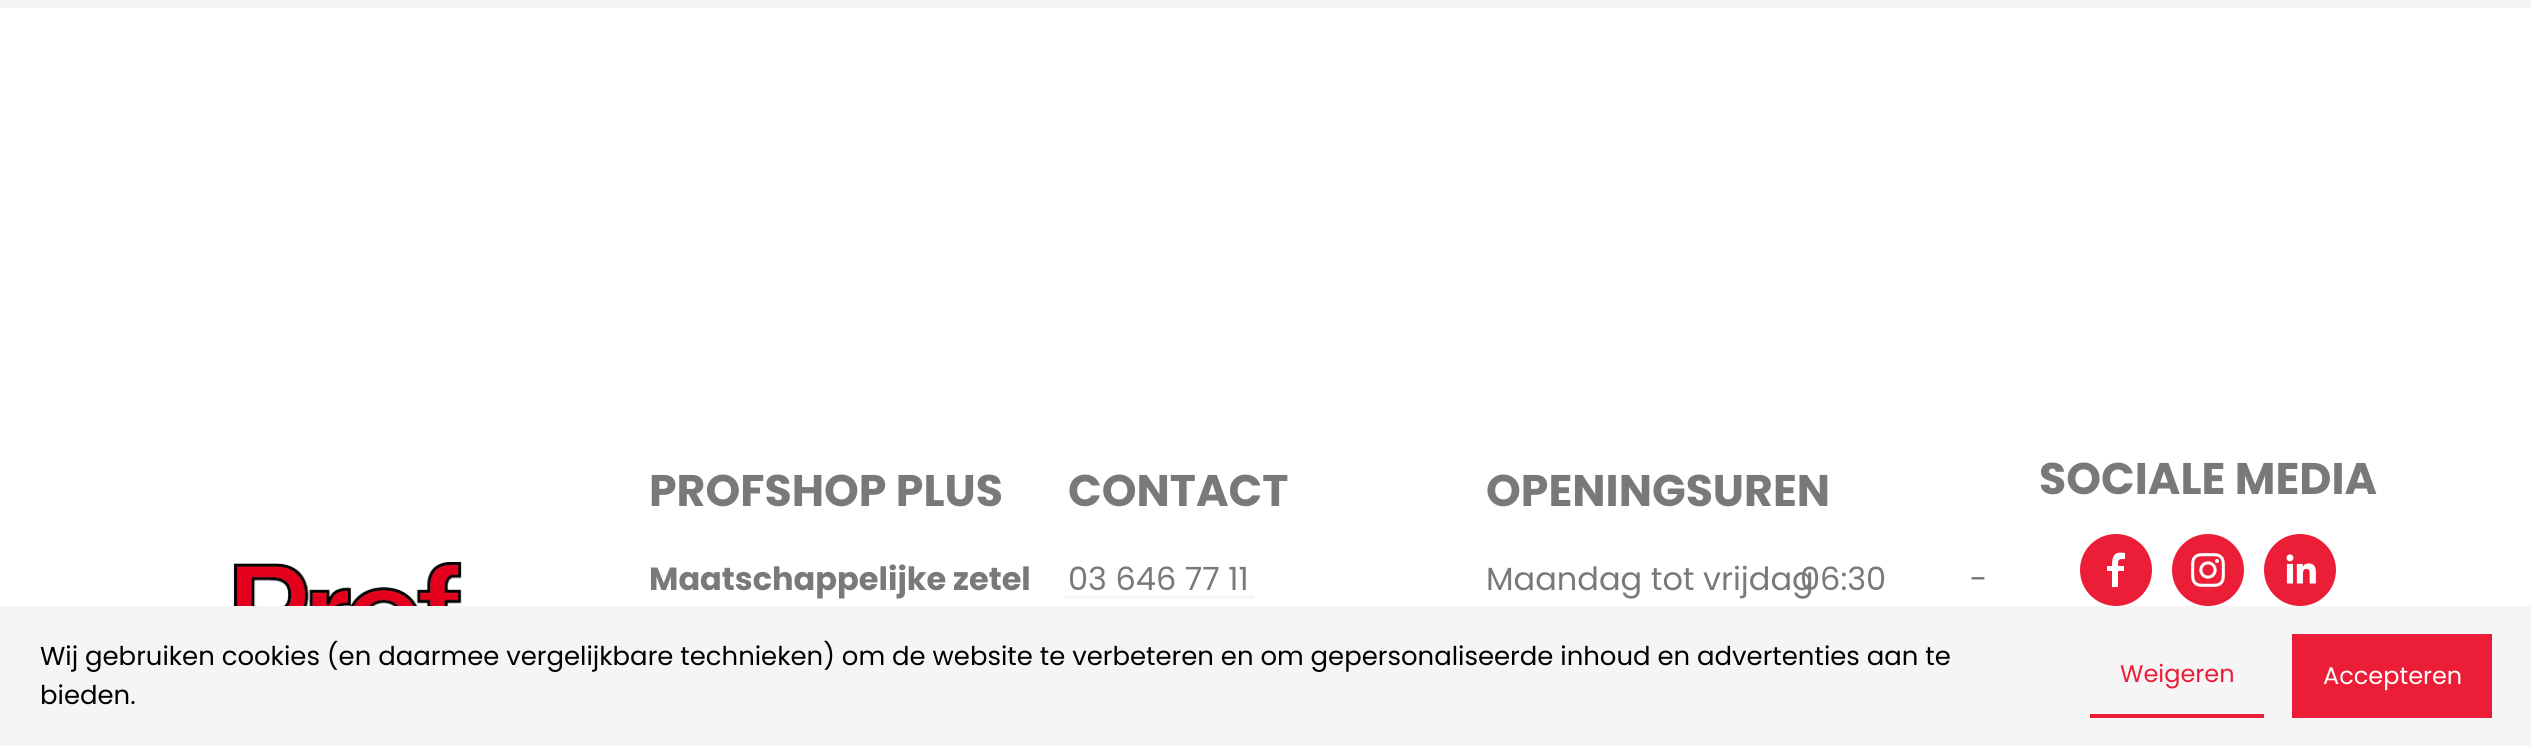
import math
import cairocffi as cairo

surface = cairo.ImageSurface(cairo.FORMAT_RGB24, 2531, 746)
ctx = cairo.Context(surface)
options = cairo.FontOptions()
options.set_hint_metrics(cairo.HINT_METRICS_OFF)
options.set_hint_style(cairo.HINT_STYLE_NONE)
ctx.set_font_options(options)
ctx.set_miter_limit(4)


def rgb(r, g, b):
    ctx.set_source_rgb(r / 255, g / 255, b / 255)


def face(family, size, italic, bold):
    ctx.select_font_face(family, cairo.FONT_SLANT_ITALIC if italic else cairo.FONT_SLANT_NORMAL, cairo.FONT_WEIGHT_BOLD if bold else cairo.FONT_WEIGHT_NORMAL)
    ctx.set_font_size(size)


def label(x, y, s):
    ctx.move_to(x, y)
    ctx.show_text(s)


def tracked(x, y, s, letter, word):
    ctx.move_to(x, y)
    for ch in s:
        ctx.show_text(ch)
        ctx.rel_move_to(letter + word * (ch == ' '), 0)


def rect(x, y, w, h):
    ctx.rectangle(x, y, w, h)
    ctx.fill()


def image(path, x, y, w, h):
    ctx.save()
    ctx.set_source_surface(cairo.ImageSurface.create_from_png(path), x, y)
    ctx.rectangle(x, y, w, h)
    ctx.fill()
    ctx.restore()


rgb(245, 245, 245)
ctx.paint()
rgb(255, 255, 255)
rect(0, 8, 2531, 598)
face('Poppins', 44.25, 0, 1)
rgb(121, 121, 121)
label(649, 506, 'PROFSHOP PLUS')
face('Poppins', 32, 0, 1)
label(649, 590, 'Maatschappelijke zetel')
face('Poppins', 44.25, 0, 1)
label(1068, 506, 'CONTACT')
face('Poppins', 32, 0, 0)
label(1068, 590, '03 646 77 11')
rgb(245, 245, 245)
rect(1064, 596, 190, 3)
face('Poppins', 44.25, 0, 1)
rgb(121, 121, 121)
label(1486, 506, 'OPENINGSUREN')
face('Poppins', 32, 0, 0)
label(1486, 590, 'Maandag tot vrijdag')
face('Poppins', 44.25, 0, 1)
label(2039, 494, 'SOCIALE MEDIA')
image('image0.png', 233, 562, 229, 44)
face('Poppins', 32, 0, 0)
tracked(1800, 590, '06:30 -', 0, 75)
rgb(236, 29, 54)
ctx.set_fill_rule(cairo.FILL_RULE_EVEN_ODD)
ctx.new_path()
ctx.move_to(2116, 534)
ctx.curve_to(2096, 534, 2080, 550, 2080, 570)
ctx.curve_to(2080, 590, 2096, 606, 2116, 606)
ctx.curve_to(2136, 606, 2152, 590, 2152, 570)
ctx.curve_to(2152, 550, 2136, 534, 2116, 534)
ctx.close_path()
ctx.move_to(2125, 559)
ctx.line_to(2125, 553)
ctx.curve_to(2114, 551, 2112, 556, 2112, 566)
ctx.line_to(2107, 566)
ctx.line_to(2107, 571)
ctx.line_to(2112, 571)
ctx.line_to(2112, 587)
ctx.line_to(2118, 587)
ctx.line_to(2118, 571)
ctx.line_to(2124, 571)
ctx.line_to(2124, 566)
ctx.line_to(2118, 566)
ctx.curve_to(2118, 559, 2118, 559, 2125, 559)
ctx.close_path()
ctx.fill()
image('image1.png', 2172, 534, 72, 72)
image('image2.png', 2264, 534, 72, 72)
face('Poppins', 25.92, 0, 0)
rgb(0, 0, 0)
label(40, 665, 'Wij gebruiken cookies (en daarmee vergelijkbare technieken) om de website te verbeteren en om gepersonaliseerde inhoud en advertenties aan te')
label(40, 704, 'bieden.')
rgb(236, 29, 54)
rect(2090, 714, 174, 4)
face('Poppins', 24, 0, 0)
label(2120, 682, 'Weigeren')
rect(2292, 634, 200, 84)
rgb(255, 255, 255)
label(2323, 684, 'Accepteren')
surface.write_to_png('render.png')
